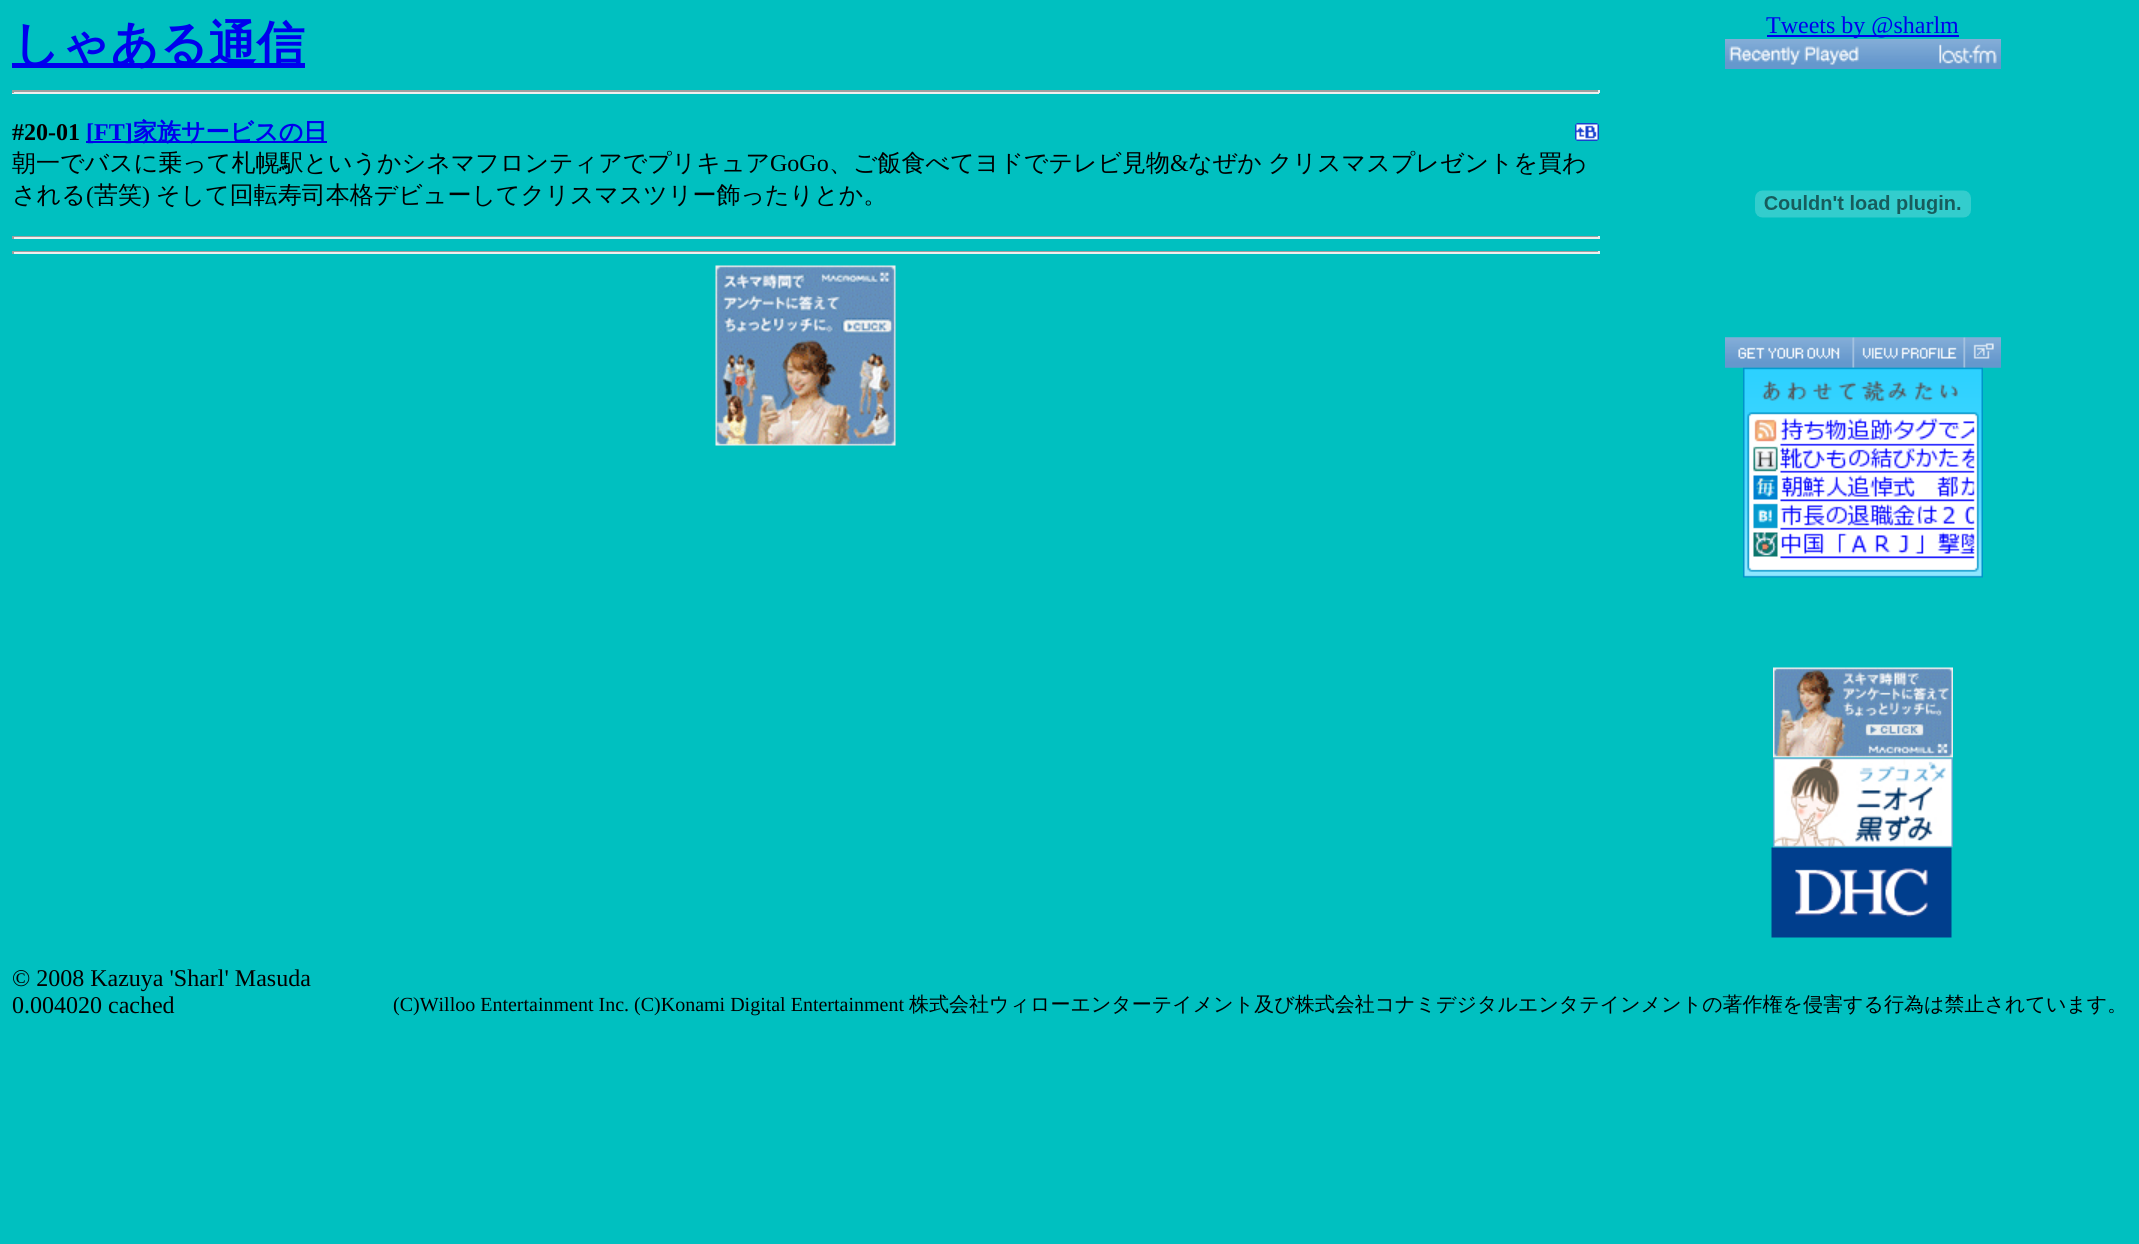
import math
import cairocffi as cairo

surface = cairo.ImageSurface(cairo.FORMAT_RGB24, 2139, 1244)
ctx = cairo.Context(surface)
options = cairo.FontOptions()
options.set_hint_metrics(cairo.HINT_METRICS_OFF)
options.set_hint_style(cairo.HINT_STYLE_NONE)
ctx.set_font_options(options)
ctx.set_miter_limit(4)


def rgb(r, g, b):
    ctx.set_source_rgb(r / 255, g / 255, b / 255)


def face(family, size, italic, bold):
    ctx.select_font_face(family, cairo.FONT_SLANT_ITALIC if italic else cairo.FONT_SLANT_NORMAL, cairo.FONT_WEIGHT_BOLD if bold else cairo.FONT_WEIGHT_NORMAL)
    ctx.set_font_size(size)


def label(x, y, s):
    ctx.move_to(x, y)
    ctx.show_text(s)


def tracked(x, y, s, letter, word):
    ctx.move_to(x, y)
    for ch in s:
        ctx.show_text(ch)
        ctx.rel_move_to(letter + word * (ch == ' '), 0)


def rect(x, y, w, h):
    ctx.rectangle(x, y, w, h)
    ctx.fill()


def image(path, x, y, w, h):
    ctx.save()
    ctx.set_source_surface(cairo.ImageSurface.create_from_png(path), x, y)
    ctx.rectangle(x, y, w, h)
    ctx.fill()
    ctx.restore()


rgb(0, 192, 192)
ctx.paint()
rgb(0, 0, 238)
rect(12, 63, 293, 5)
face('WenQuanYi Zen Hei', 48, 0, 1)
label(12, 60, 'しゃある通信')
rgb(159, 159, 159)
rect(12, 90, 1587, 2)
rgb(238, 238, 238)
rect(1598, 90, 2, 3)
rect(12, 92, 1587, 2)
rgb(159, 159, 159)
rect(12, 90, 2, 3)
face('Liberation Serif', 24, 0, 1)
rgb(0, 0, 0)
label(12, 140, '#20-01')
rgb(0, 0, 238)
rect(86, 141, 241, 2)
label(86, 140, '[FT]')
face('WenQuanYi Zen Hei', 24, 0, 1)
label(133, 140, '家族サービスの日')
image('image0.png', 1575, 123, 24, 18)
face('WenQuanYi Zen Hei Medium', 24, 0, 0)
rgb(0, 0, 0)
label(12, 171, '朝一でバスに乗って札幌駅というかシネマフロンティアでプリキュア')
face('Liberation Serif', 24, 0, 0)
label(770, 171, 'GoGo')
face('WenQuanYi Zen Hei Medium', 24, 0, 0)
label(829, 171, '、ご飯食べてヨドでテレビ見物')
face('Liberation Serif', 24, 0, 0)
label(1170, 171, '&')
face('WenQuanYi Zen Hei Medium', 24, 0, 0)
tracked(1188, 171, 'なぜか クリスマスプレゼントを買わ', 0, -1)
label(12, 203, 'される')
face('Liberation Serif', 24, 0, 0)
label(86, 203, '(')
face('WenQuanYi Zen Hei Medium', 24, 0, 0)
label(94, 203, '苦笑')
face('Liberation Serif', 24, 0, 0)
label(142, 203, ')')
face('WenQuanYi Zen Hei Medium', 24, 0, 0)
label(156, 203, 'そして回転寿司本格デビューしてクリスマスツリー飾ったりとか。')
rgb(159, 159, 159)
rect(12, 236, 1587, 1)
rgb(238, 238, 238)
rect(1598, 236, 2, 3)
rect(12, 237, 1587, 2)
rgb(159, 159, 159)
rect(12, 236, 2, 3)
rect(12, 251, 1587, 1)
rgb(238, 238, 238)
rect(1598, 251, 2, 3)
rect(12, 252, 1587, 2)
rgb(159, 159, 159)
rect(12, 251, 2, 3)
image('image1.png', 715, 265, 181, 181)
rgb(0, 0, 238)
rect(1767, 35, 192, 2)
face('Liberation Serif', 24, 0, 0)
label(1766, 33, 'Tweets by @sharlm')
image('image2.png', 1725, 39, 276, 30)
image('image3.png', 1755, 190, 216, 28)
image('image4.png', 1725, 337, 276, 31)
image('image8.png', 1743, 367, 240, 211)
image('image5.png', 1725, 337, 128, 31)
image('image6.png', 1852, 337, 112, 31)
image('image7.png', 1963, 337, 38, 31)
image('image9.png', 1773, 667, 180, 91)
image('image11.png', 1771, 847, 181, 91)
image('image10.png', 1773, 757, 180, 91)
rgb(0, 0, 0)
label(12, 986, '© 2008 Kazuya \'Sharl\' Masuda')
label(12, 1013, '0.004020 cached')
face('Liberation Serif', 20, 0, 0)
label(393, 1011, '(C)Willoo Entertainment Inc. (C)Konami Digital Entertainment')
face('WenQuanYi Zen Hei Medium', 20, 0, 0)
label(909, 1011, '株式会社ウィローエンターテイメント及び株式会社コナミデジタルエンタテインメントの著作権を侵害する行為は禁止されています。')
surface.write_to_png('render.png')
